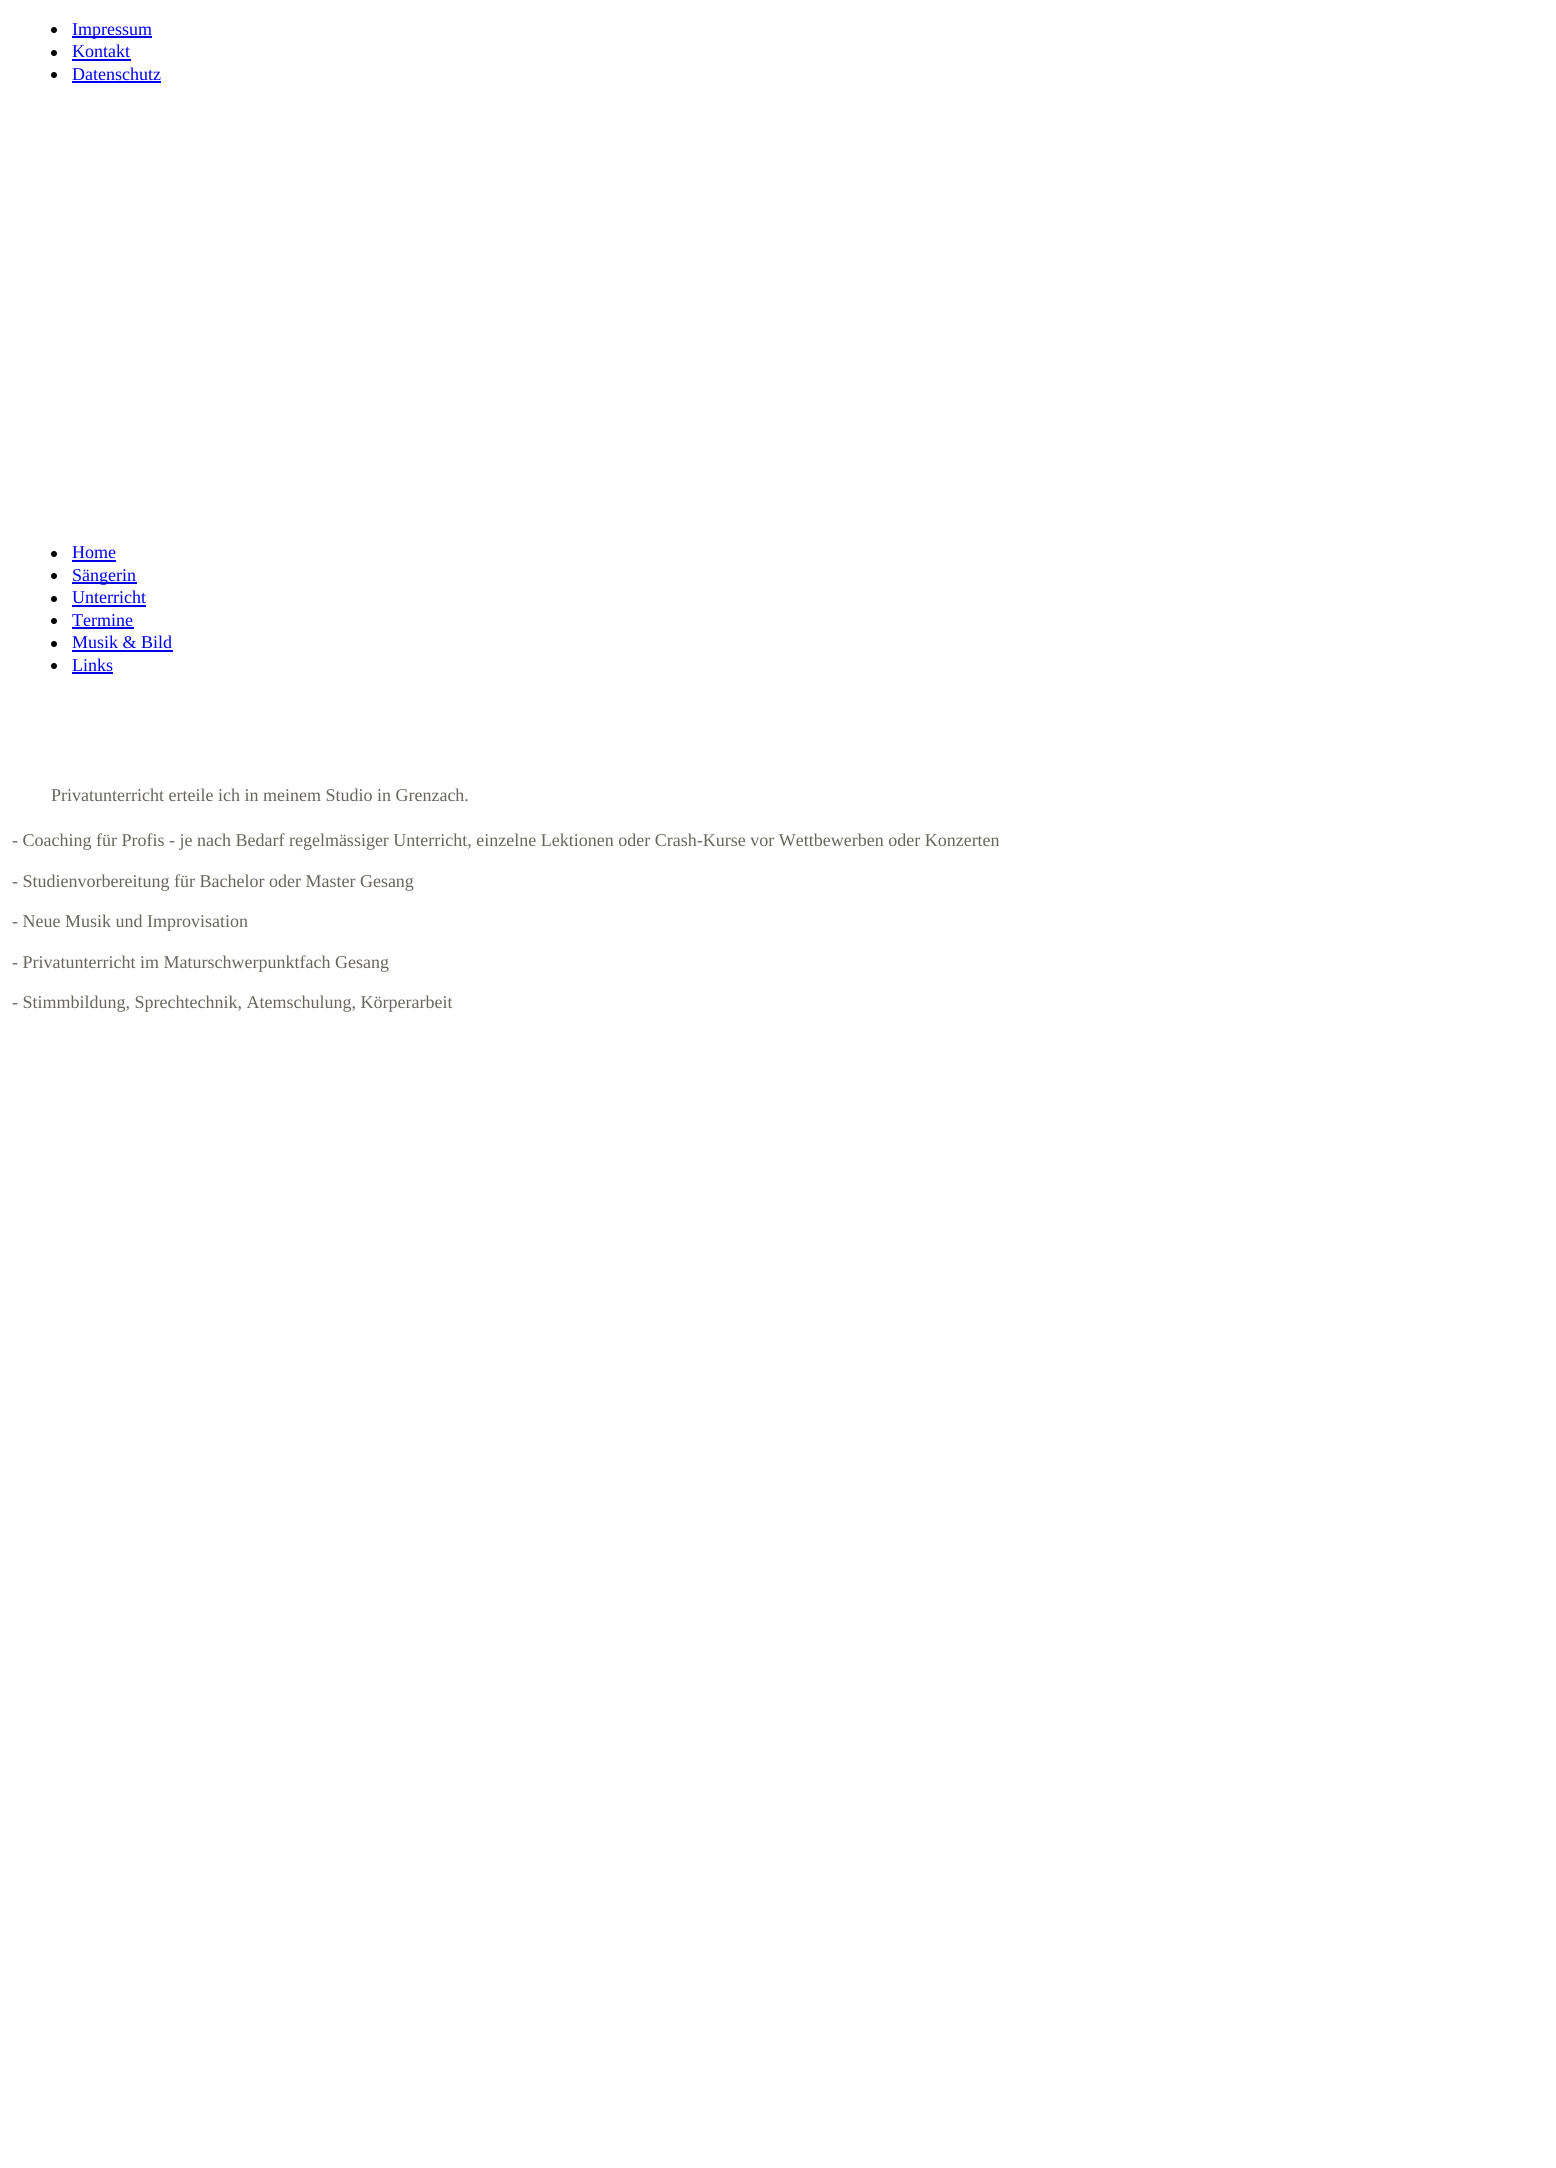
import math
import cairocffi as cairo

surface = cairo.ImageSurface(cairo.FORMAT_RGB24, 1556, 2168)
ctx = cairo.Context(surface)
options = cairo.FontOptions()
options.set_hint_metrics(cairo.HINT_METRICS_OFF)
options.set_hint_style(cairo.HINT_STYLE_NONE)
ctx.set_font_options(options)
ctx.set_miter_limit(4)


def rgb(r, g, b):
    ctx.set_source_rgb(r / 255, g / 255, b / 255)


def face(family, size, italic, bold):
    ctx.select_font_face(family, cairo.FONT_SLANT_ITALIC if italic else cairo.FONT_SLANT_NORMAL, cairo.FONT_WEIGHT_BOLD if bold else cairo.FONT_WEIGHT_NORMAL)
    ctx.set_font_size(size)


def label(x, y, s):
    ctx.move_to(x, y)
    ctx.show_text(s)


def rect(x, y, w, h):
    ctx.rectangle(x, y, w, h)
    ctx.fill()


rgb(255, 255, 255)
ctx.paint()
rgb(0, 0, 0)
ctx.arc(54, 30, 3, 0, 2 * math.pi)
ctx.fill()
rgb(0, 0, 238)
rect(72, 36, 80, 2)
face('Liberation Serif', 18, 0, 0)
label(72, 35, 'Impressum')
rgb(0, 0, 0)
ctx.new_path()
ctx.arc(54, 53, 3, 0, 2 * math.pi)
ctx.fill()
rgb(0, 0, 238)
label(72, 57, 'Kontakt')
rect(72, 59, 59, 2)
rgb(0, 0, 0)
ctx.new_path()
ctx.arc(54, 75, 3, 0, 2 * math.pi)
ctx.fill()
rgb(0, 0, 238)
label(72, 80, 'Datenschutz')
rect(72, 81, 89, 2)
rgb(0, 0, 0)
ctx.new_path()
ctx.arc(54, 554, 3, 0, 2 * math.pi)
ctx.fill()
rgb(0, 0, 238)
label(72, 558, 'Home')
rect(72, 560, 44, 2)
rgb(0, 0, 0)
ctx.new_path()
ctx.arc(54, 576, 3, 0, 2 * math.pi)
ctx.fill()
rgb(0, 0, 238)
rect(72, 582, 65, 2)
label(72, 581, 'Sängerin')
rgb(0, 0, 0)
ctx.new_path()
ctx.arc(54, 599, 3, 0, 2 * math.pi)
ctx.fill()
rgb(0, 0, 238)
label(72, 603, 'Unterricht')
rect(72, 605, 74, 2)
rgb(0, 0, 0)
ctx.new_path()
ctx.arc(54, 621, 3, 0, 2 * math.pi)
ctx.fill()
rgb(0, 0, 238)
label(72, 626, 'Termine')
rect(72, 627, 62, 2)
rgb(0, 0, 0)
ctx.new_path()
ctx.arc(54, 644, 3, 0, 2 * math.pi)
ctx.fill()
rgb(0, 0, 238)
label(72, 648, 'Musik & Bild')
rect(72, 650, 101, 2)
rgb(0, 0, 0)
ctx.new_path()
ctx.arc(54, 666, 3, 0, 2 * math.pi)
ctx.fill()
rgb(0, 0, 238)
label(72, 671, 'Links')
rect(72, 672, 41, 2)
rgb(103, 101, 94)
label(51, 801, 'Privatunterricht erteile ich in meinem Studio in Grenzach.')
label(12, 846, '- Coaching für Profis - je nach Bedarf regelmässiger Unterricht, einzelne Lektionen oder Crash-Kurse vor Wettbewerben oder Konzerten')
label(12, 887, '- Studienvorbereitung für Bachelor oder Master Gesang')
label(12, 927, '- Neue Musik und Improvisation')
label(12, 968, '- Privatunterricht im Maturschwerpunktfach Gesang')
label(12, 1008, '- Stimmbildung, Sprechtechnik, Atemschulung, Körperarbeit')
surface.write_to_png('render.png')
